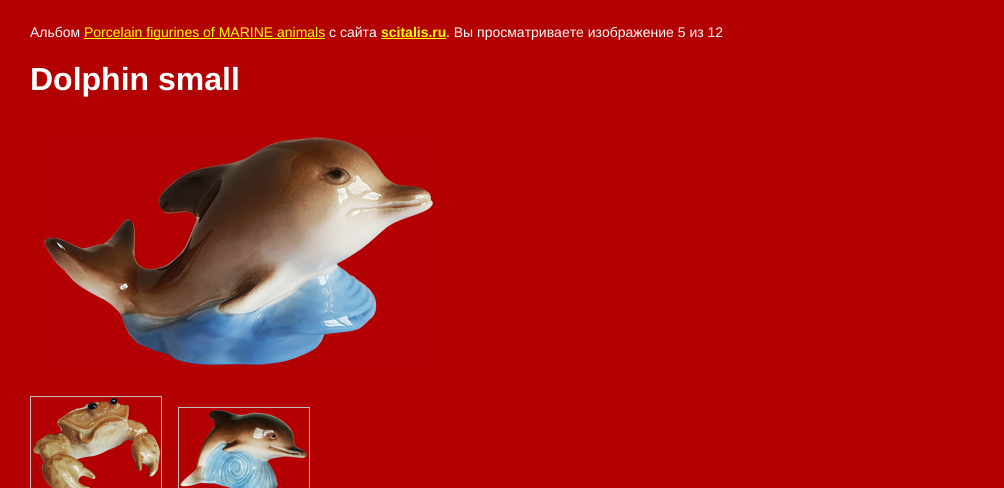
import math
import cairocffi as cairo

surface = cairo.ImageSurface(cairo.FORMAT_RGB24, 1004, 488)
ctx = cairo.Context(surface)
options = cairo.FontOptions()
options.set_hint_metrics(cairo.HINT_METRICS_OFF)
options.set_hint_style(cairo.HINT_STYLE_NONE)
ctx.set_font_options(options)
ctx.set_miter_limit(4)


def rgb(r, g, b):
    ctx.set_source_rgb(r / 255, g / 255, b / 255)


def face(family, size, italic, bold):
    ctx.select_font_face(family, cairo.FONT_SLANT_ITALIC if italic else cairo.FONT_SLANT_NORMAL, cairo.FONT_WEIGHT_BOLD if bold else cairo.FONT_WEIGHT_NORMAL)
    ctx.set_font_size(size)


def label(x, y, s):
    ctx.move_to(x, y)
    ctx.show_text(s)


def rect(x, y, w, h):
    ctx.rectangle(x, y, w, h)
    ctx.fill()


def image(path, x, y, w, h):
    ctx.save()
    ctx.set_source_surface(cairo.ImageSurface.create_from_png(path), x, y)
    ctx.rectangle(x, y, w, h)
    ctx.fill()
    ctx.restore()


rgb(179, 0, 0)
ctx.paint()
face('Liberation Sans', 14, 0, 0)
rgb(255, 255, 255)
label(30, 37, 'Альбом')
rgb(255, 255, 0)
rect(84, 38, 241, 1)
label(84, 37, 'Porcelain figurines of MARINE animals')
rgb(255, 255, 255)
label(329, 37, 'с сайта')
face('Liberation Sans', 14, 0, 1)
rgb(255, 255, 0)
label(381, 37, 'scitalis.ru')
rect(381, 38, 65, 1)
face('Liberation Sans', 14, 0, 0)
rgb(255, 255, 255)
label(446, 37, '. Вы просматриваете изображение 5 из 12')
face('Liberation Sans', 32, 0, 1)
label(30, 90, 'Dolphin small')
image('image0.png', 44, 137, 389, 228)
ctx.rectangle(30.5, 396.5, 131, 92)
rgb(192, 192, 192)
ctx.set_line_width(1)
ctx.stroke()
image('image1.png', 33, 397, 128, 91)
ctx.rectangle(178.5, 407.5, 131, 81)
ctx.stroke()
image('image2.png', 180, 409, 128, 79)
surface.write_to_png('render.png')
